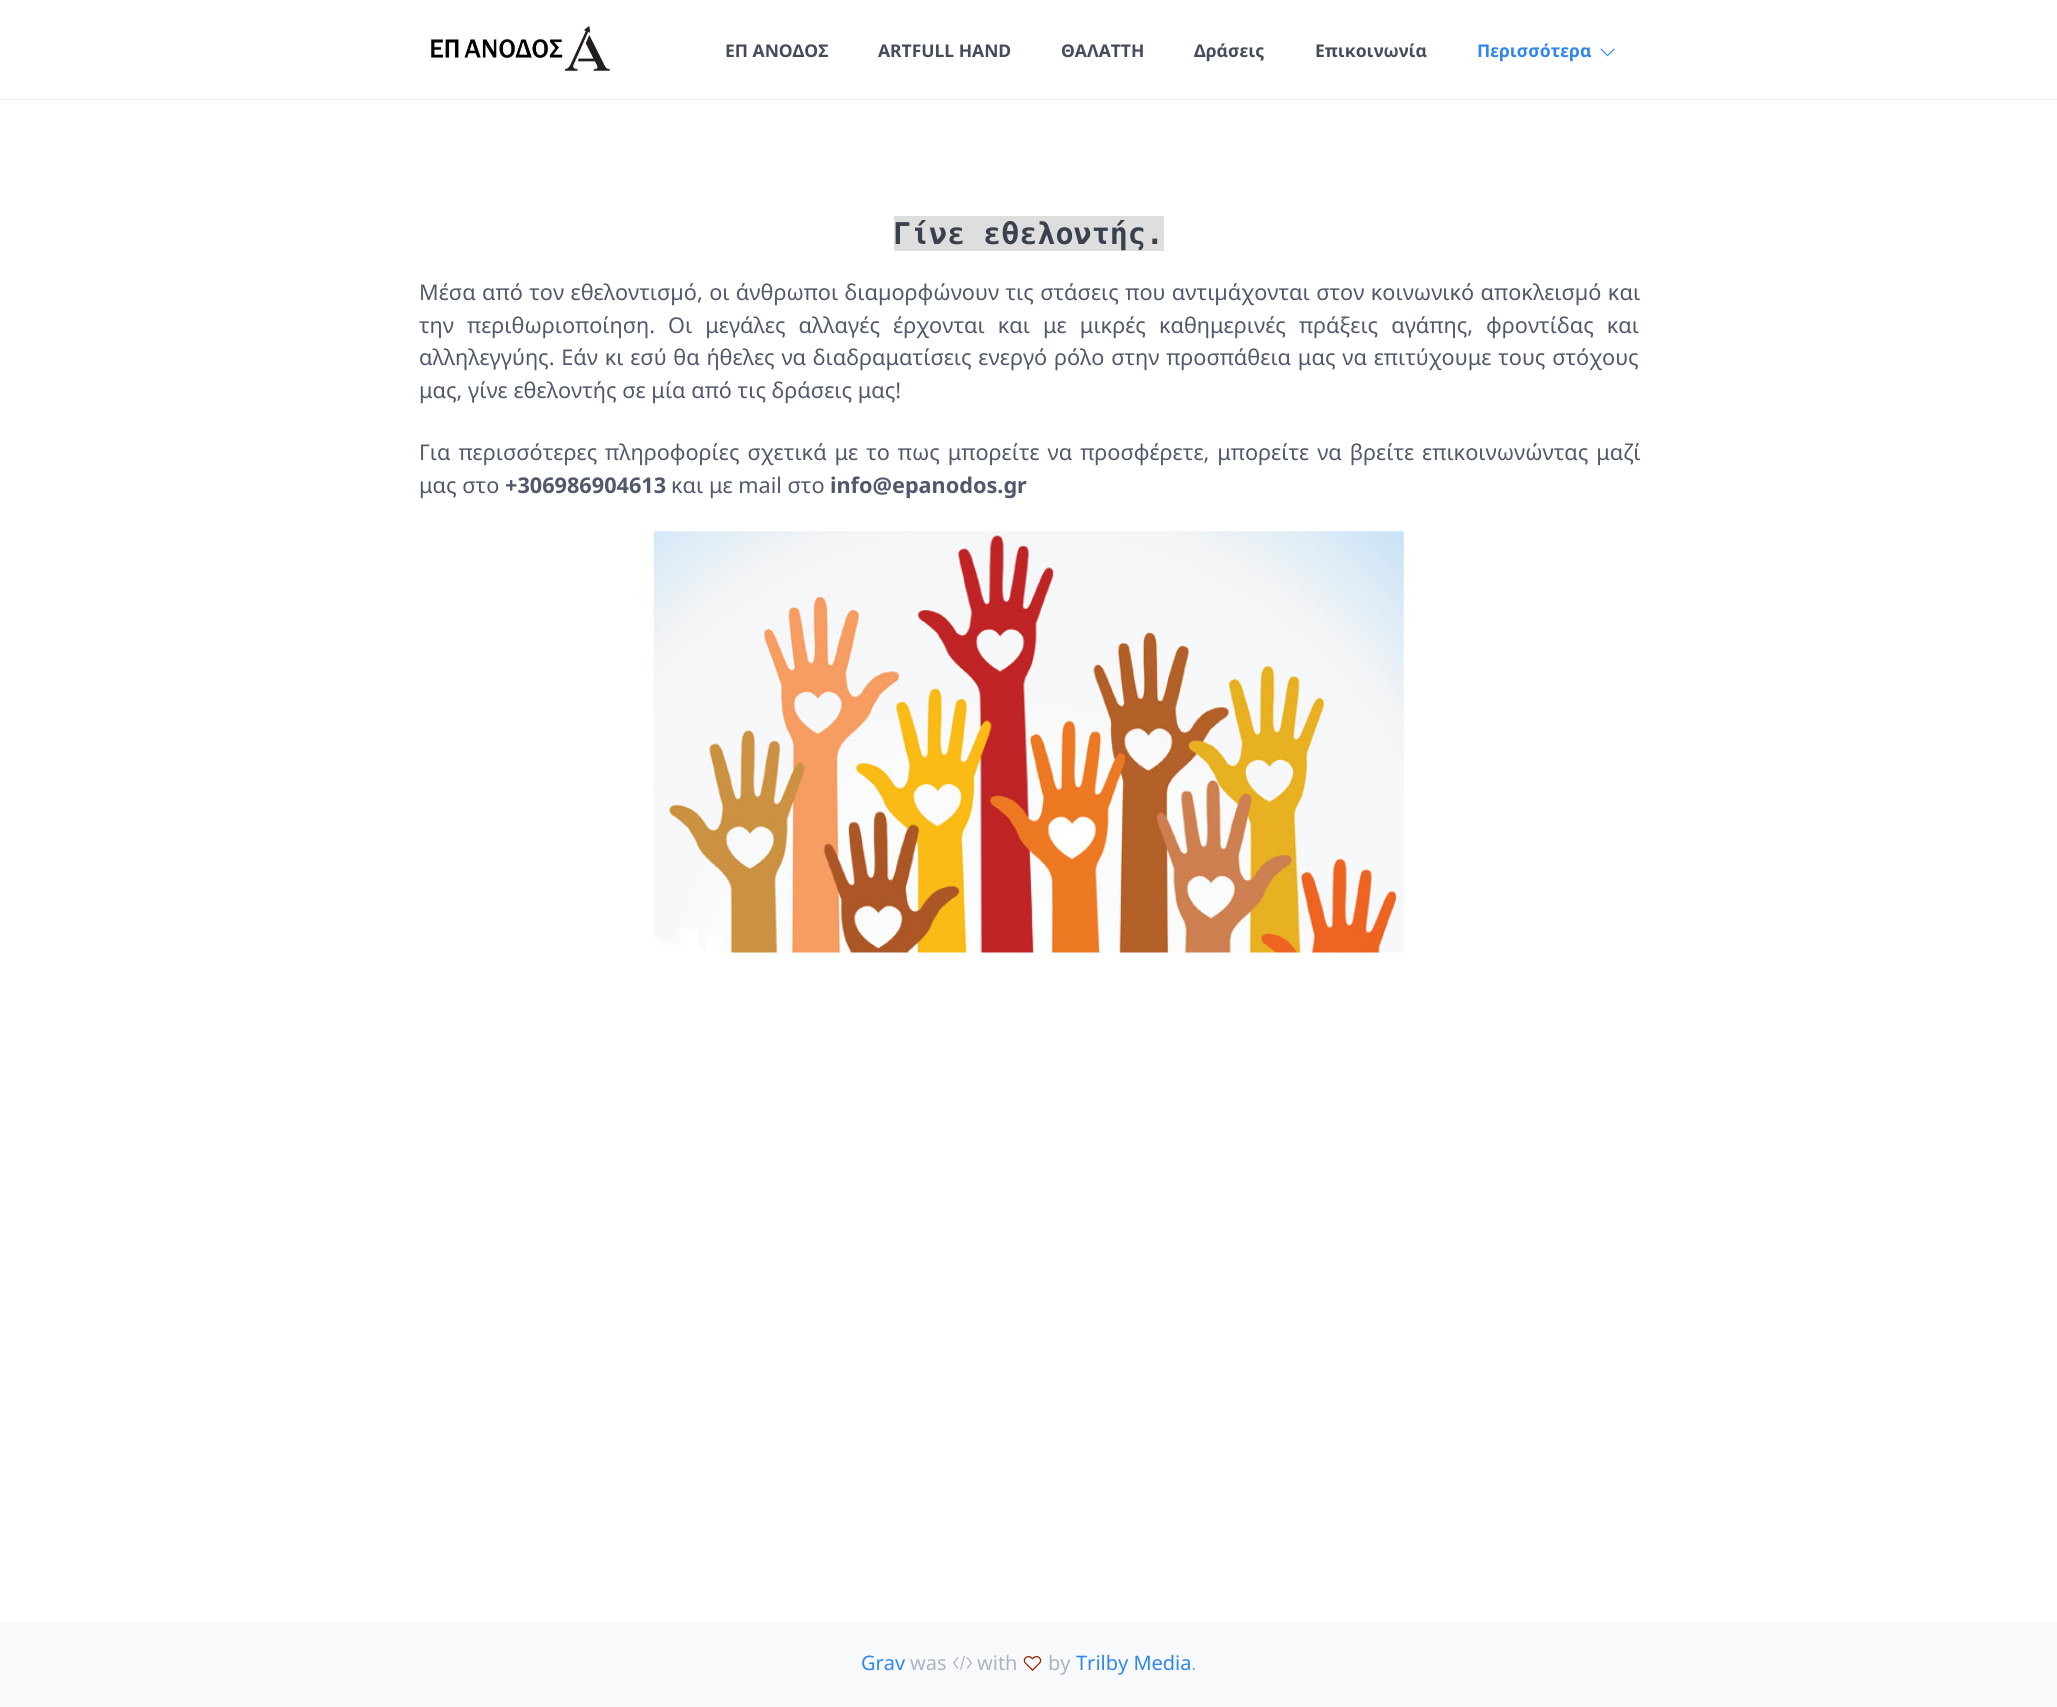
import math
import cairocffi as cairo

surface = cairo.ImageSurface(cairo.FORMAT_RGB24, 2057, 1707)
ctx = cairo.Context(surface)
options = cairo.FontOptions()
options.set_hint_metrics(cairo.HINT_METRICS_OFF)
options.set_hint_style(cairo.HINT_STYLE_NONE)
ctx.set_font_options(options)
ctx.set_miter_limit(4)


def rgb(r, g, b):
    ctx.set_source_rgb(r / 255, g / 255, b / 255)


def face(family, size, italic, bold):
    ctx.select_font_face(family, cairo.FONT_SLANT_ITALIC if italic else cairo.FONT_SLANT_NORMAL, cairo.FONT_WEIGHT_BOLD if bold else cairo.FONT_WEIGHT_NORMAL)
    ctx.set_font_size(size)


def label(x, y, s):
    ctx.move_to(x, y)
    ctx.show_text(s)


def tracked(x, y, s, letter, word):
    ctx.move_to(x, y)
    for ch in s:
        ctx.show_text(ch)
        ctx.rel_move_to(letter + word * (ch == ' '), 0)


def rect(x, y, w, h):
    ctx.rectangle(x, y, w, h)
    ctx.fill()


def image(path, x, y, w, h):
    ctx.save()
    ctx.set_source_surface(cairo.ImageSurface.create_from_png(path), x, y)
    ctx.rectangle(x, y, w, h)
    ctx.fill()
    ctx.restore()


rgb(255, 255, 255)
ctx.paint()
rgb(238, 240, 243)
rect(0, 99, 2057, 1)
image('image0.png', 431, 25, 180, 47)
face('Noto Sans', 17.5, 0, 1)
rgb(69, 77, 93)
label(725, 57, 'ΕΠ ΑΝΟΔΟΣ')
label(878, 57, 'ARTFULL HAND')
label(1061, 57, 'ΘΑΛΑTΤΗ')
label(1194, 57, 'Δράσεις')
label(1315, 57, 'Επικοινωνία')
rgb(48, 133, 238)
label(1477, 57, 'Περισσότερα')
image('image1.png', 1600, 48, 15, 9)
rgb(222, 222, 222)
rect(894, 216, 270, 35)
face('DejaVu Sans Mono', 30, 0, 1)
rgb(58, 65, 78)
label(893, 244, 'Γίνε εθελοντής.')
face('Noto Sans', 21.67, 0, 0)
rgb(80, 89, 108)
tracked(419, 300, 'Μέσα από τον εθελοντισµό, οι άνθρωποι διαµορφώνουν τις στάσεις που αντιµάχονται στον κοινωνικό αποκλεισµό και', 0, 0.75)
tracked(419, 333, 'την περιθωριοποίηση.', 0, 7.4)
tracked(668, 333, 'Οι μεγάλες αλλαγές έρχονται και με μικρές καθημερινές πράξεις αγάπης, φροντίδας και', 0, 7.4)
tracked(419, 365, 'αλληλεγγύης. Εάν κι εσύ θα ήθελες να διαδραματίσεις ενεργό ρόλο στην προσπάθεια μας να επιτύχουμε τους στόχους', 0, 1.1)
label(419, 398, 'μας, γίνε εθελοντής σε μία από τις δράσεις μας!')
tracked(419, 460, 'Για περισσότερες πληροφορίες σχετικά με το πως μπορείτε να προσφέρετε, μπορείτε να βρείτε επικοινωνώντας μαζί', 0, 2.25)
label(419, 493, 'μας στο')
face('Noto Sans', 21.67, 0, 1)
label(505, 493, '+306986904613')
face('Noto Sans', 21.67, 0, 0)
label(671, 493, 'και με mail στο')
face('Noto Sans', 21.67, 0, 1)
label(830, 493, 'info@epanodos.gr')
image('image2.png', 653, 531, 751, 422)
rgb(248, 249, 250)
rect(0, 1623, 2057, 84)
face('Noto Sans', 20, 0, 0)
rgb(48, 133, 238)
label(861, 1670, 'Grav')
rgb(172, 179, 194)
label(910, 1670, 'was')
image('image3.png', 953, 1656, 19, 14)
label(977, 1670, 'with')
image('image4.png', 1023, 1656, 19, 15)
label(1048, 1670, 'by')
rgb(48, 133, 238)
label(1076, 1670, 'Trilby Media')
rgb(172, 179, 194)
label(1191, 1670, '.')
surface.write_to_png('render.png')
